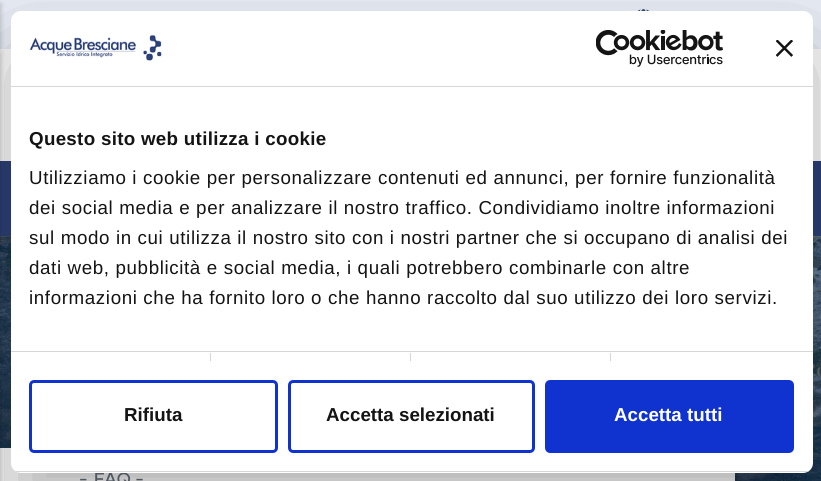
import math
import cairocffi as cairo

surface = cairo.ImageSurface(cairo.FORMAT_RGB24, 821, 481)
ctx = cairo.Context(surface)
options = cairo.FontOptions()
options.set_hint_metrics(cairo.HINT_METRICS_OFF)
options.set_hint_style(cairo.HINT_STYLE_NONE)
ctx.set_font_options(options)
ctx.set_miter_limit(4)


def rgb(r, g, b):
    ctx.set_source_rgb(r / 255, g / 255, b / 255)


def face(family, size, italic, bold):
    ctx.select_font_face(family, cairo.FONT_SLANT_ITALIC if italic else cairo.FONT_SLANT_NORMAL, cairo.FONT_WEIGHT_BOLD if bold else cairo.FONT_WEIGHT_NORMAL)
    ctx.set_font_size(size)


def label(x, y, s):
    ctx.move_to(x, y)
    ctx.show_text(s)


def tracked(x, y, s, letter, word):
    ctx.move_to(x, y)
    for ch in s:
        ctx.show_text(ch)
        ctx.rel_move_to(letter + word * (ch == ' '), 0)


def rect(x, y, w, h):
    ctx.rectangle(x, y, w, h)
    ctx.fill()


def rrect(x, y, w, h, r):
    ctx.new_sub_path()
    for i, (u, v) in enumerate([(x + w - r, y + h - r), (x + r, y + h - r), (x + r, y + r), (x + w - r, y + r)]):
        ctx.arc(u, v, r, i * math.pi / 2, (i + 1) * math.pi / 2)
    ctx.close_path()


def soft_shadow(x, y, w, h, r, blur, alpha):
    ctx.push_group_with_content(cairo.CONTENT_ALPHA)
    ctx.set_operator(cairo.OPERATOR_SOURCE)
    for i in range(15, -16, -2):
        e = blur * i / 6
        if min(w, h) + 2 * e > 0:
            ctx.set_source_rgba(0, 0, 0, alpha * math.erfc((i - 1) / 8.5) / 2)
            rrect(x - e, y - e, w + 2 * e, h + 2 * e, max(0, min(r + e + blur * .6, min(w, h) / 2 + e)))
            ctx.fill()
    ctx.mask(ctx.pop_group())


def image(path, x, y, w, h):
    ctx.save()
    ctx.set_source_surface(cairo.ImageSurface.create_from_png(path), x, y)
    ctx.rectangle(x, y, w, h)
    ctx.fill()
    ctx.restore()


rgb(255, 255, 255)
ctx.paint()
rgb(45, 66, 121)
rect(0, 161, 821, 75)
rgb(233, 238, 247)
rect(0, 0, 821, 49)
image('image3.png', 637, 9, 12, 2)
image('image4.png', 0, 236, 821, 1)
image('image5.png', 0, 236, 821, 245)
rgb(255, 255, 255)
rect(0, 448, 735, 33)
rgb(0, 0, 0)
soft_shadow(11, 51, 802, 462, 10, 42.5, 0.3)
face('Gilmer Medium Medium', 17.5, 0, 0)
rgb(79, 88, 97)
label(94, 485, 'FAQ -')
rgb(255, 255, 255)
rrect(11, 11, 802, 462, 10)
ctx.fill()
rgb(214, 214, 214)
rect(11, 86, 802, 1)
image('image0.png', 29, 35, 133, 26)
image('image1.png', 596, 30, 127, 37)
image('image2.png', 776, 40, 17, 17)
rect(11, 351, 802, 1)
face('Liberation Sans', 18.75, 0, 1)
rgb(20, 20, 20)
tracked(29, 145, 'Questo sito web utilizza i cookie', 0.3, 0)
face('Liberation Sans', 18.75, 0, 0)
tracked(29, 184, 'Utilizziamo i cookie per personalizzare contenuti ed annunci, per fornire funzionalità', 0.62, 0)
tracked(29, 214, 'dei social media e per analizzare il nostro traffico. Condividiamo inoltre informazioni', 0.62, 0)
tracked(29, 244, 'sul modo in cui utilizza il nostro sito con i nostri partner che si occupano di analisi dei', 0.62, 0)
tracked(29, 274, 'dati web, pubblicità e social media, i quali potrebbero combinarle con altre', 0.62, 0)
tracked(29, 304, 'informazioni che ha fornito loro o che hanno raccolto dal suo utilizzo dei loro servizi.', 0.62, 0)
rgb(214, 214, 214)
rect(210, 353, 1, 8)
rect(410, 353, 1, 8)
rect(610, 353, 1, 8)
ctx.save()
rrect(11, 11, 802, 462, 10)
ctx.clip()
rect(11, 471, 802, 1)
ctx.restore()
rrect(30.5, 381.5, 246, 70, 3.5)
rgb(16, 50, 207)
ctx.set_line_width(3)
ctx.stroke()
face('Liberation Sans', 18.75, 0, 1)
rgb(20, 20, 20)
label(124, 421, 'Rifiuta')
rrect(289.5, 381.5, 244, 70, 3.5)
rgb(16, 50, 207)
ctx.stroke()
rgb(20, 20, 20)
label(326, 421, 'Accetta selezionati')
rgb(16, 50, 207)
rrect(546.5, 381.5, 246, 70, 3.5)
ctx.fill_preserve()
ctx.stroke()
rgb(255, 255, 255)
label(614, 421, 'Accetta tutti')
rgb(0, 0, 0)
soft_shadow(-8, 4, 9, 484, 0, 2.5, 0.2)
face('Gilmer Medium Medium', 17.5, 0, 0)
rgb(79, 88, 97)
label(79, 485, '-')
surface.write_to_png('render.png')
